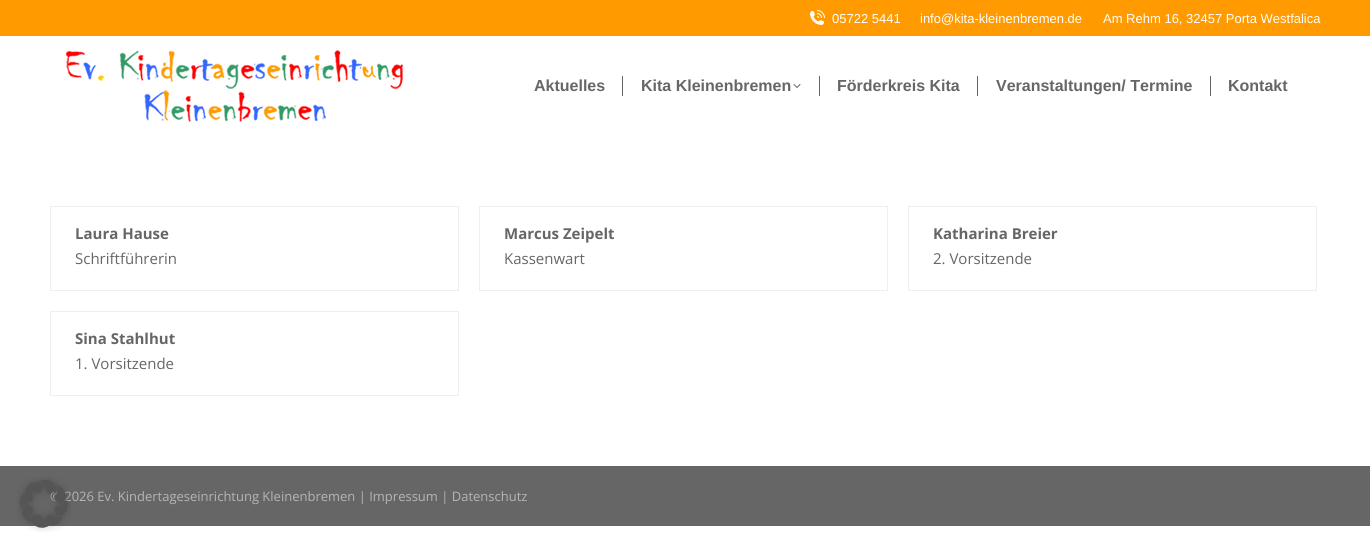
import math
import cairocffi as cairo

surface = cairo.ImageSurface(cairo.FORMAT_RGB24, 1370, 548)
ctx = cairo.Context(surface)
options = cairo.FontOptions()
options.set_hint_metrics(cairo.HINT_METRICS_OFF)
options.set_hint_style(cairo.HINT_STYLE_NONE)
ctx.set_font_options(options)
ctx.set_miter_limit(4)


def rgb(r, g, b):
    ctx.set_source_rgb(r / 255, g / 255, b / 255)


def face(family, size, italic, bold):
    ctx.select_font_face(family, cairo.FONT_SLANT_ITALIC if italic else cairo.FONT_SLANT_NORMAL, cairo.FONT_WEIGHT_BOLD if bold else cairo.FONT_WEIGHT_NORMAL)
    ctx.set_font_size(size)


def label(x, y, s):
    ctx.move_to(x, y)
    ctx.show_text(s)


def rect(x, y, w, h):
    ctx.rectangle(x, y, w, h)
    ctx.fill()


def image(path, x, y, w, h):
    ctx.save()
    ctx.set_source_surface(cairo.ImageSurface.create_from_png(path), x, y)
    ctx.rectangle(x, y, w, h)
    ctx.fill()
    ctx.restore()


rgb(255, 255, 255)
ctx.paint()
rgb(102, 102, 102)
rect(0, 466, 1370, 60)
face('Open Sans', 13, 0, 0)
rgb(179, 181, 182)
label(50, 501, '© 2026 Ev. Kindertageseinrichtung Kleinenbremen | Impressum | Datenschutz')
image('image0.png', 17, 477, 54, 55)
rgb(255, 154, 0)
rect(0, 0, 1370, 36)
image('image1.png', 810, 10, 15, 15)
face('Liberation Sans', 13, 0, 0)
rgb(255, 255, 255)
label(832, 23, '05722 5441')
label(920, 23, 'info@kita-kleinenbremen.de')
label(1103, 23, 'Am Rehm 16, 32457 Porta Westfalica')
image('image2.png', 66, 49, 337, 73)
face('Liberation Sans', 16, 0, 1)
rgb(102, 102, 102)
label(534, 91, 'Aktuelles')
rect(622, 76, 1, 20)
label(641, 91, 'Kita Kleinenbremen')
image('image3.png', 793, 84, 8, 4)
rect(819, 76, 1, 20)
label(837, 91, 'Förderkreis Kita')
rect(977, 76, 1, 20)
label(996, 91, 'Veranstaltungen/ Termine')
rect(1210, 76, 1, 20)
label(1228, 91, 'Kontakt')
ctx.rectangle(50.5, 206.5, 408, 84)
rgb(239, 239, 239)
ctx.set_line_width(1)
ctx.stroke()
face('Open Sans', 15, 0, 1)
rgb(102, 102, 102)
label(75, 239, 'Laura Hause')
face('Open Sans', 15, 0, 0)
label(75, 264, 'Schriftführerin')
ctx.rectangle(479.5, 206.5, 408, 84)
rgb(239, 239, 239)
ctx.stroke()
face('Open Sans', 15, 0, 1)
rgb(102, 102, 102)
label(504, 239, 'Marcus Zeipelt')
face('Open Sans', 15, 0, 0)
label(504, 264, 'Kassenwart')
ctx.rectangle(908.5, 206.5, 408, 84)
rgb(239, 239, 239)
ctx.stroke()
face('Open Sans', 15, 0, 1)
rgb(102, 102, 102)
label(933, 239, 'Katharina Breier')
face('Open Sans', 15, 0, 0)
label(933, 264, '2. Vorsitzende')
ctx.rectangle(50.5, 311.5, 408, 84)
rgb(239, 239, 239)
ctx.stroke()
face('Open Sans', 15, 0, 1)
rgb(102, 102, 102)
label(75, 344, 'Sina Stahlhut')
face('Open Sans', 15, 0, 0)
label(75, 369, '1. Vorsitzende')
surface.write_to_png('render.png')
